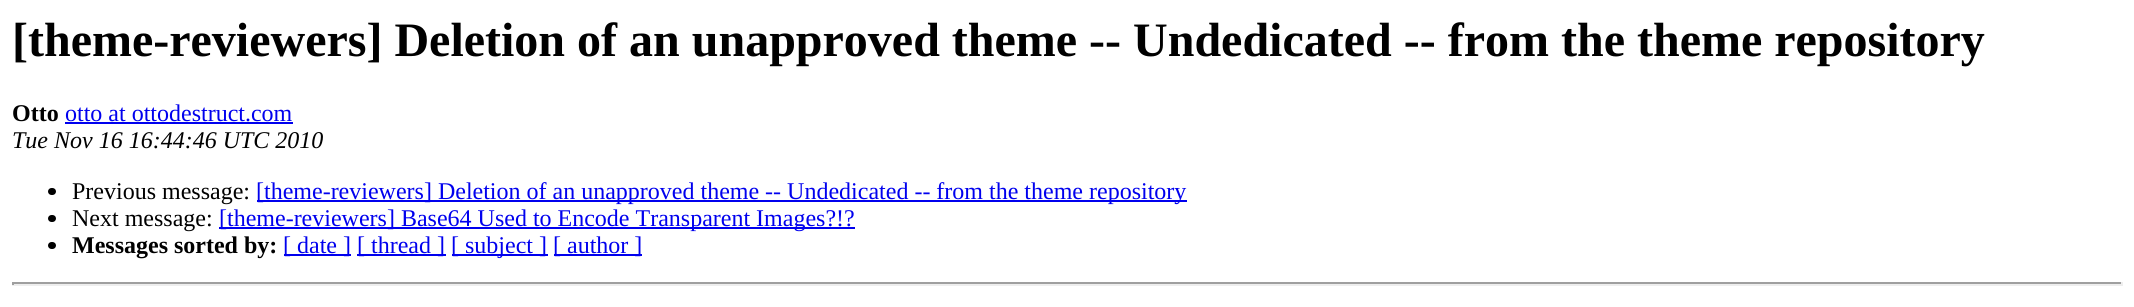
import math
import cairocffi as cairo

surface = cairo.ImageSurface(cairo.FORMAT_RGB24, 2134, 307)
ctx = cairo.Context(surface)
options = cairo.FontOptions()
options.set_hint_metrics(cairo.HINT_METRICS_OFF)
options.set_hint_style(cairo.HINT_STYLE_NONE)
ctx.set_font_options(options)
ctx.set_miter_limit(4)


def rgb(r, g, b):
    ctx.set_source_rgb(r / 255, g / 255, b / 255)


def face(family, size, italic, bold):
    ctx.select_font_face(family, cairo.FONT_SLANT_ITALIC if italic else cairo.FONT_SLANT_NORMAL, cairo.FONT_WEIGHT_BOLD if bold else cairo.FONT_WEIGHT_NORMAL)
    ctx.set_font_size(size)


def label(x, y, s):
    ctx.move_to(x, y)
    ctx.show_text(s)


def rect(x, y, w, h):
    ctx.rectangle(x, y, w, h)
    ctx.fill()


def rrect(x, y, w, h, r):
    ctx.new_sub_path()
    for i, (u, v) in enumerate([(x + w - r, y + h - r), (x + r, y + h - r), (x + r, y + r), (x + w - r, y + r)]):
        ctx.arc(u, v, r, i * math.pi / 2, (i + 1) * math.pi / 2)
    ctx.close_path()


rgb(255, 255, 255)
ctx.paint()
face('Liberation Serif', 48, 0, 1)
rgb(0, 0, 0)
label(12, 56, '[theme-reviewers] Deletion of an unapproved theme -- Undedicated -- from the theme repository')
face('Liberation Serif', 24, 0, 1)
label(12, 121, 'Otto')
face('Liberation Serif', 24, 0, 0)
rgb(0, 0, 238)
label(65, 121, 'otto at ottodestruct.com')
rect(65, 122, 228, 2)
face('Liberation Serif', 24, 1, 0)
rgb(0, 0, 0)
label(12, 148, 'Tue Nov 16 16:44:46 UTC 2010')
rrect(48, 188, 8, 7, 3.5)
ctx.fill()
face('Liberation Serif', 24, 0, 0)
label(72, 199, 'Previous message:')
rgb(0, 0, 238)
rect(257, 200, 930, 2)
label(256, 199, '[theme-reviewers] Deletion of an unapproved theme -- Undedicated -- from the theme repository')
rgb(0, 0, 0)
rrect(48, 215, 8, 7, 3.5)
ctx.fill()
label(72, 226, 'Next message:')
rgb(0, 0, 238)
rect(219, 227, 636, 2)
label(219, 226, '[theme-reviewers] Base64 Used to Encode Transparent Images?!?')
rgb(0, 0, 0)
rrect(48, 242, 8, 7, 3.5)
ctx.fill()
face('Liberation Serif', 24, 0, 1)
label(72, 253, 'Messages sorted by:')
rgb(0, 0, 238)
rect(284, 254, 67, 2)
face('Liberation Serif', 24, 0, 0)
label(283, 253, '[ date ]')
rect(357, 254, 89, 2)
label(357, 253, '[ thread ]')
rect(452, 254, 96, 2)
label(451, 253, '[ subject ]')
rect(554, 254, 88, 2)
label(553, 253, '[ author ]')
rgb(159, 159, 159)
rect(12, 282, 2111, 2)
rgb(238, 238, 238)
rect(2121, 282, 2, 3)
rect(12, 284, 2111, 2)
rgb(159, 159, 159)
rect(12, 282, 2, 3)
surface.write_to_png('render.png')
